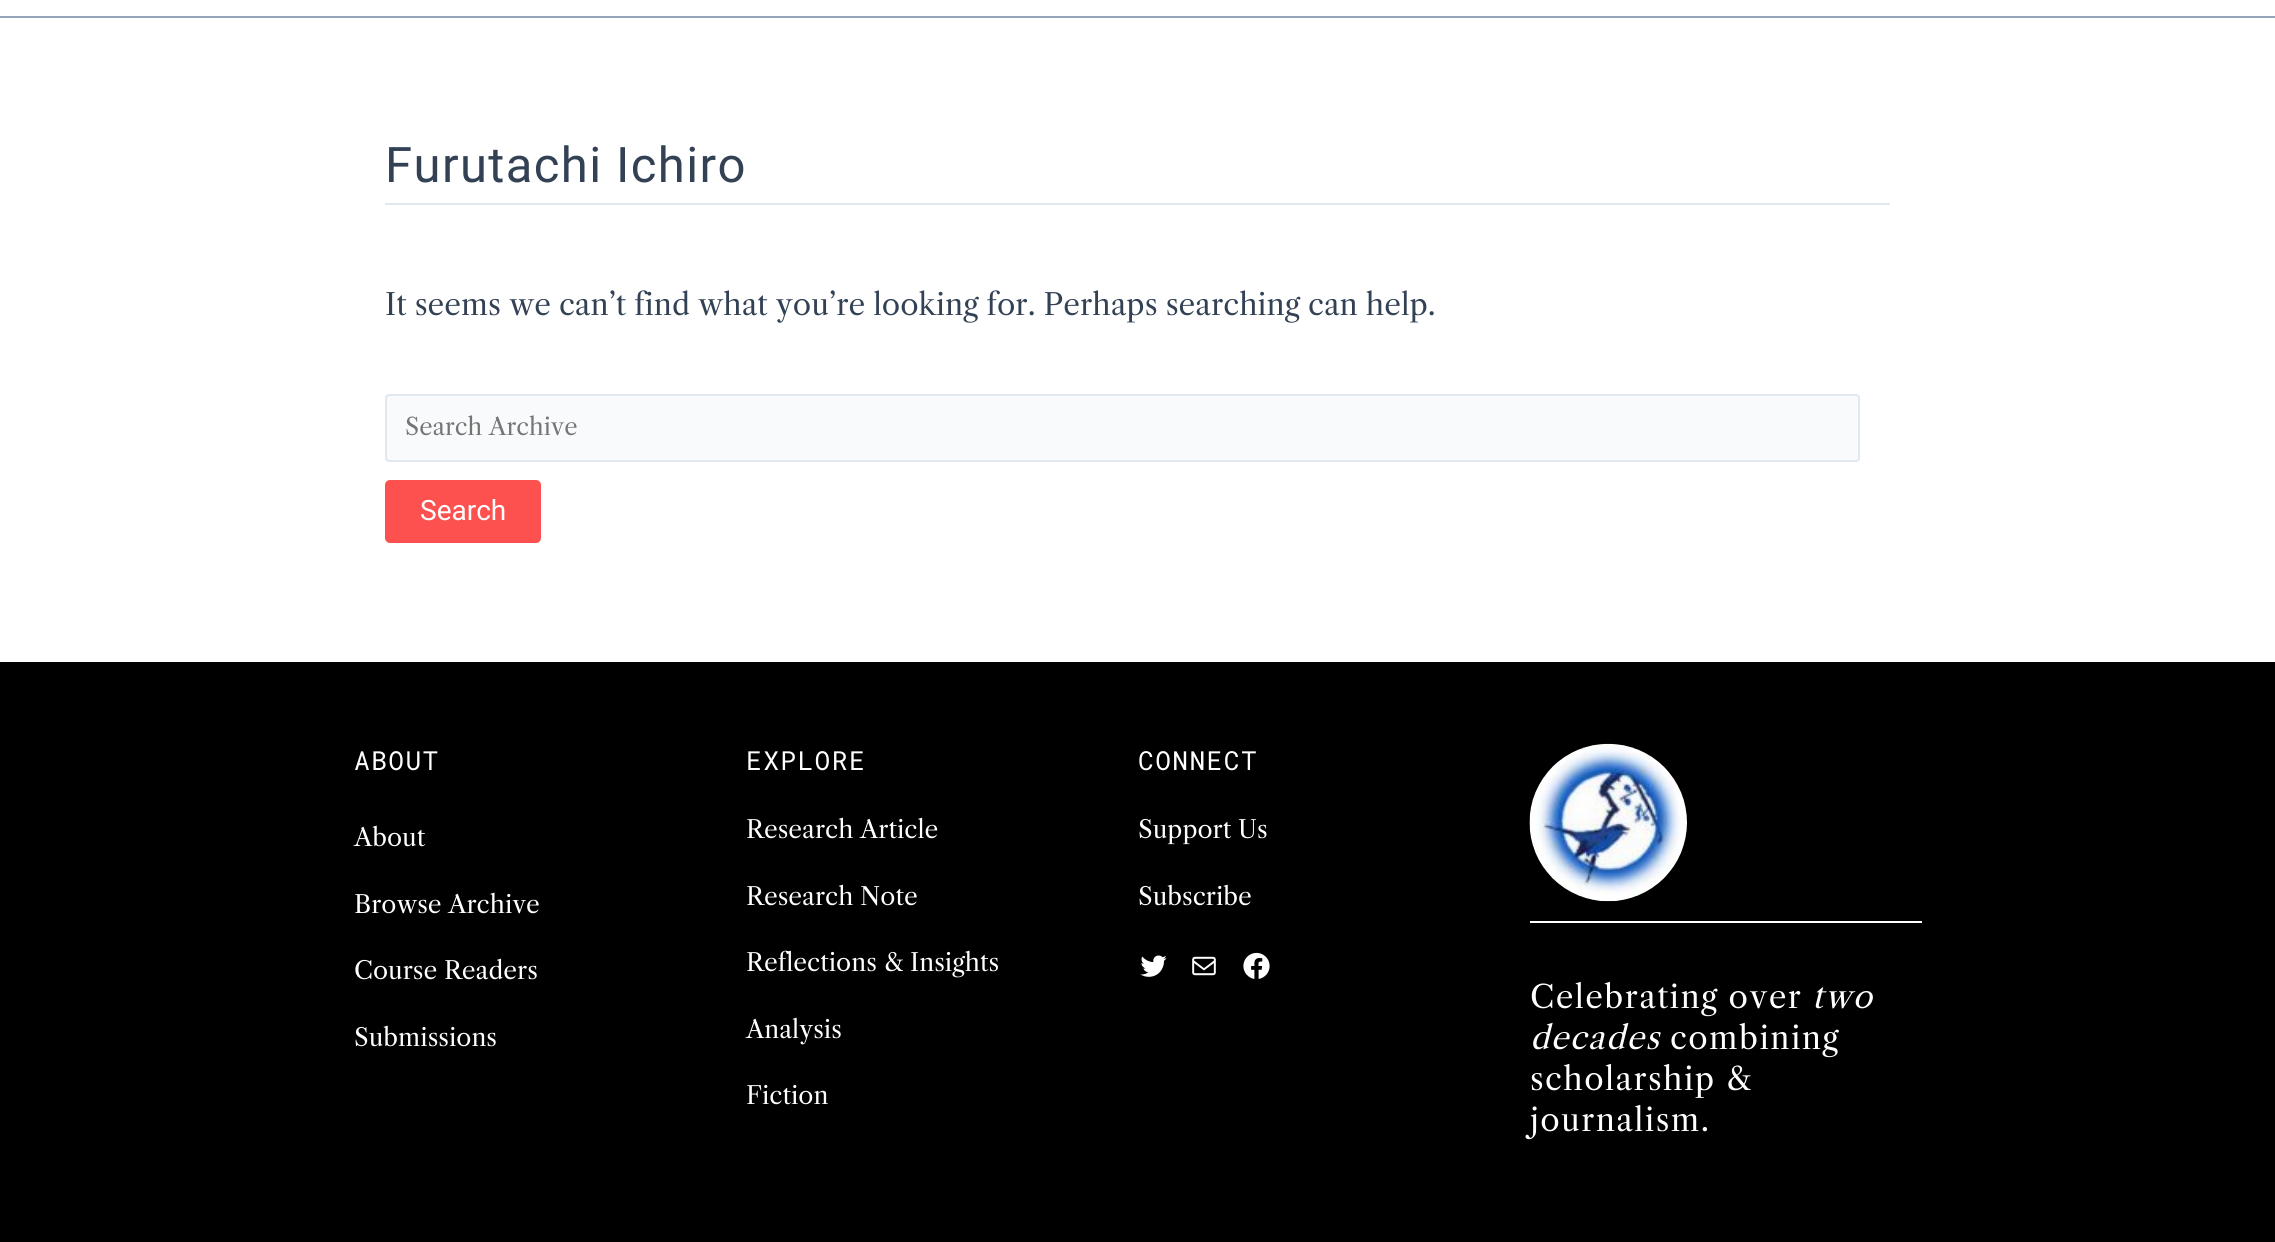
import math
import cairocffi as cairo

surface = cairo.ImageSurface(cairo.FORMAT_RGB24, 2275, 1242)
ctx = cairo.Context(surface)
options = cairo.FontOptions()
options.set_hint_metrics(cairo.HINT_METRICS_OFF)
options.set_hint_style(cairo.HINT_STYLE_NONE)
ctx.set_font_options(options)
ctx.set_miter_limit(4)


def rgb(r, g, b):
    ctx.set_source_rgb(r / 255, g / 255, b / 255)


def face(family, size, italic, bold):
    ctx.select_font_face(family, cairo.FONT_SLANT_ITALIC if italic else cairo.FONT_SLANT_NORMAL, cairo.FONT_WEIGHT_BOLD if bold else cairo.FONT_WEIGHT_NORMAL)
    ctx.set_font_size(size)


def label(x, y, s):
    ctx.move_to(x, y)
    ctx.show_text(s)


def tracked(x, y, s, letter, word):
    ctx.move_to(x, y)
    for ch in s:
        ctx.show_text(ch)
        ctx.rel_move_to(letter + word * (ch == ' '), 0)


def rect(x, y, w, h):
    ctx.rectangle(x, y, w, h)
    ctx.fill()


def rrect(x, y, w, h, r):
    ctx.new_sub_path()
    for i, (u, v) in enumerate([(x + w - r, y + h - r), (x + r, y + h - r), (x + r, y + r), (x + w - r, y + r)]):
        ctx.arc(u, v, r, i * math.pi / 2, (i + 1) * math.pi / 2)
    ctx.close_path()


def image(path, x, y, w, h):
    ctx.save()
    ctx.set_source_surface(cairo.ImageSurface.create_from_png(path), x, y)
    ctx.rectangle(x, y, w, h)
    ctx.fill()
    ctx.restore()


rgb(255, 255, 255)
ctx.paint()
rgb(148, 163, 184)
rect(0, 16, 2275, 2)
rgb(226, 232, 240)
rect(385, 203, 1505, 2)
face('Roboto', 49, 0, 0)
rgb(51, 65, 85)
tracked(385, 182, 'Furutachi Ichiro', 1.4, 0)
face('Libre Caslon Text', 29.75, 0, 0)
label(385, 315, 'It seems we can’t find what you’re looking for. Perhaps searching can help.')
rgb(249, 250, 251)
rrect(386, 395, 1473, 66, 3)
ctx.fill_preserve()
rgb(226, 232, 240)
ctx.stroke()
face('Libre Caslon Text', 23.75, 0, 0)
rgb(117, 117, 117)
label(405, 435, 'Search Archive')
rgb(252, 81, 78)
rrect(385, 480, 156, 63, 5)
ctx.fill()
face('Roboto', 28, 0, 0)
rgb(255, 255, 255)
label(420, 520, 'Search')
rgb(0, 0, 0)
rect(0, 662, 2275, 580)
face('Roboto Mono', 26.25, 0, 0)
rgb(255, 255, 255)
tracked(354, 770, 'ABOUT', 1.4, 0)
face('Libre Caslon Text', 24.5, 0, 0)
label(354, 846, 'About')
label(354, 913, 'Browse Archive')
label(354, 979, 'Course Readers')
label(354, 1046, 'Submissions')
face('Roboto Mono', 26.25, 0, 0)
tracked(746, 770, 'EXPLORE', 1.4, 0)
face('Libre Caslon Text', 24.5, 0, 0)
label(746, 838, 'Research Article')
label(746, 905, 'Research Note')
label(746, 971, 'Reflections & Insights')
label(746, 1038, 'Analysis')
label(746, 1104, 'Fiction')
face('Roboto Mono', 26.25, 0, 0)
tracked(1138, 770, 'CONNECT', 1.4, 0)
face('Libre Caslon Text', 24.5, 0, 0)
label(1138, 838, 'Support Us')
label(1138, 905, 'Subscribe')
image('image0.png', 1140, 955, 27, 22)
image('image1.png', 1192, 956, 24, 20)
image('image2.png', 1243, 952, 27, 27)
image('image3.png', 1529, 743, 158, 159)
rect(1530, 921, 392, 2)
face('Libre Caslon Text', 31.5, 0, 0)
tracked(1530, 1008, 'Celebrating over', 1.4, 0)
face('Libre Caslon Text', 31.5, 1, 0)
tracked(1812, 1008, 'two', 1.4, 0)
tracked(1530, 1049, 'decades', 1.4, 0)
face('Libre Caslon Text', 31.5, 0, 0)
tracked(1670, 1049, 'combining', 1.4, 0)
tracked(1530, 1090, 'scholarship &', 1.4, 0)
tracked(1530, 1131, 'journalism.', 1.4, 0)
surface.write_to_png('render.png')
